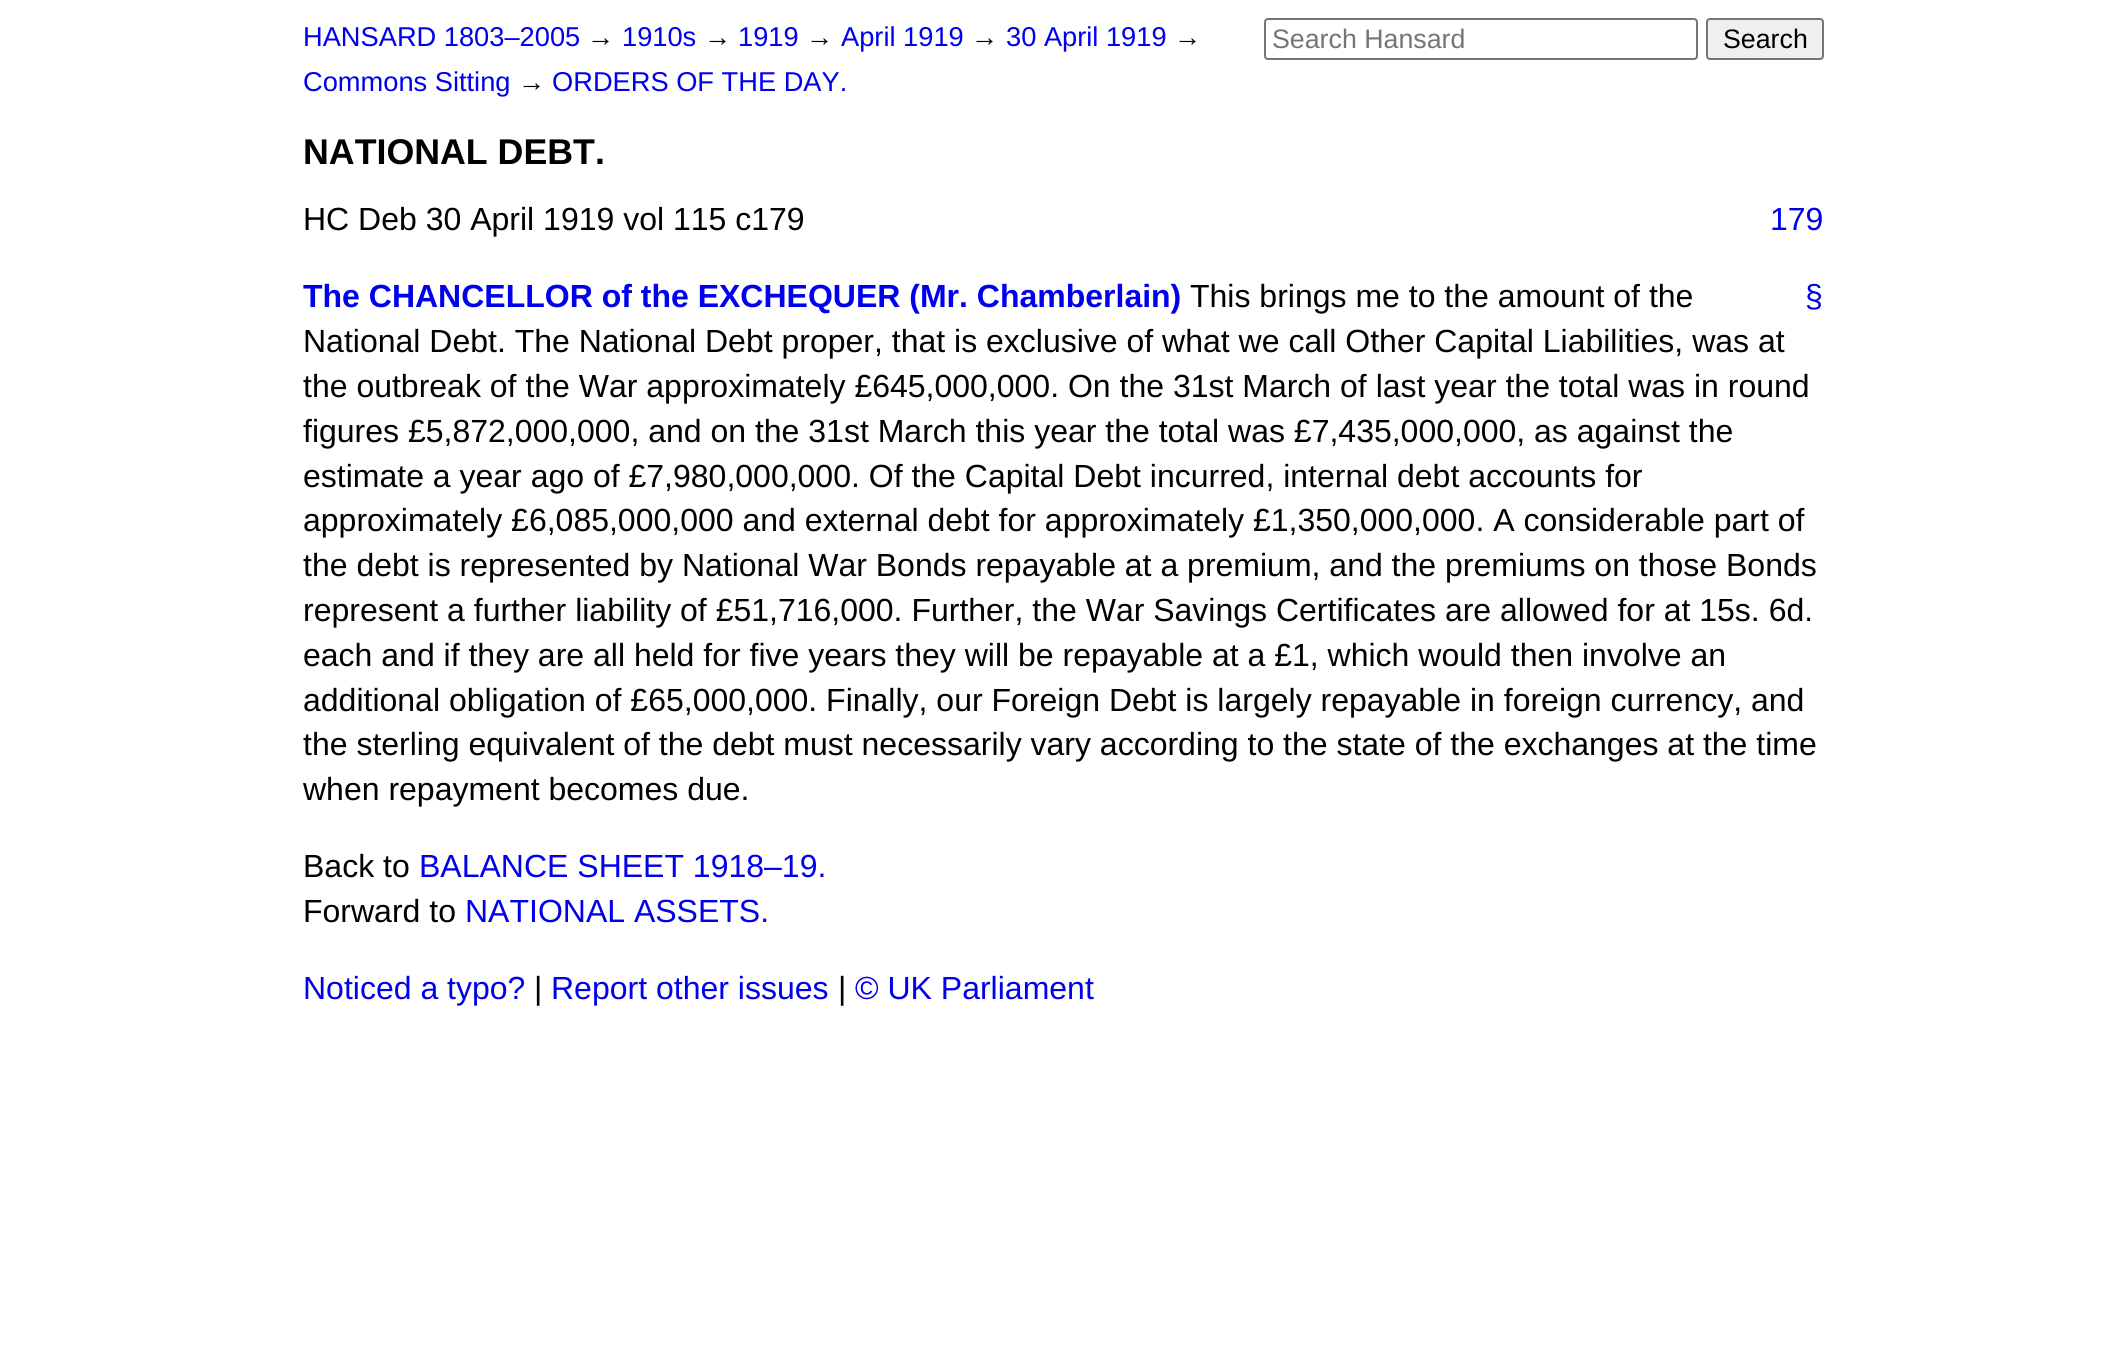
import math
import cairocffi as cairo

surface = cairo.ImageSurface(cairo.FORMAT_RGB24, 2125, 1357)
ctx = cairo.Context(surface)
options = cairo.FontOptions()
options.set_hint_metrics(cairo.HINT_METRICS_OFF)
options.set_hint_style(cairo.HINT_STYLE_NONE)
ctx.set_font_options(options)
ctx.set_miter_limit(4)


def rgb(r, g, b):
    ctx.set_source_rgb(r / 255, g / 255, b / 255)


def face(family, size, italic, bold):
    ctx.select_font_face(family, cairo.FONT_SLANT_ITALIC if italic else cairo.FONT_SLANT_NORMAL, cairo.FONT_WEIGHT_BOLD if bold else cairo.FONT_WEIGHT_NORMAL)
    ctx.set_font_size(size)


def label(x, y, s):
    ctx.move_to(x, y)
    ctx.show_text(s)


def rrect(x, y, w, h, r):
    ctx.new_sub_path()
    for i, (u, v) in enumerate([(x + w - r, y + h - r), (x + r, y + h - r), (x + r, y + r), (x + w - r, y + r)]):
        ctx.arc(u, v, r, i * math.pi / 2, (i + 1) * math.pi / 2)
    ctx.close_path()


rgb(255, 255, 255)
ctx.paint()
face('Liberation Sans', 27.25, 0, 0)
rgb(0, 0, 238)
label(303, 46, 'HANSARD 1803–2005')
rgb(0, 0, 0)
label(587, 46, '→')
rgb(0, 0, 238)
label(622, 46, '1910s')
rgb(0, 0, 0)
label(704, 46, '→')
rgb(0, 0, 238)
label(738, 46, '1919')
rgb(0, 0, 0)
label(806, 46, '→')
rgb(0, 0, 238)
label(841, 46, 'April 1919')
rgb(0, 0, 0)
label(971, 46, '→')
rgb(0, 0, 238)
label(1006, 46, '30 April 1919')
rgb(0, 0, 0)
label(1174, 46, '→')
rgb(0, 0, 238)
label(303, 91, 'Commons Sitting')
rgb(0, 0, 0)
label(518, 91, '→')
rgb(0, 0, 238)
label(552, 91, 'ORDERS OF THE DAY.')
rrect(1265, 19, 432, 40, 3)
rgb(118, 118, 118)
ctx.stroke()
face('Liberation Sans', 26.75, 0, 0)
rgb(117, 117, 117)
label(1272, 48, 'Search Hansard')
rgb(239, 239, 239)
rrect(1707, 19, 116, 40, 3)
ctx.fill_preserve()
rgb(118, 118, 118)
ctx.stroke()
rgb(0, 0, 0)
label(1723, 48, 'Search')
face('Liberation Sans', 35.75, 0, 1)
label(303, 164, 'NATIONAL DEBT.')
face('Liberation Sans', 32, 0, 0)
label(303, 230, 'HC Deb 30 April 1919 vol 115 c179')
rgb(0, 0, 238)
label(1770, 230, '179')
face('Liberation Sans', 32, 0, 1)
label(303, 307, 'The CHANCELLOR of the EXCHEQUER (Mr. Chamberlain)')
face('Liberation Sans', 32, 0, 0)
rgb(0, 0, 0)
label(1190, 307, 'This brings me to the amount of the')
rgb(0, 0, 238)
label(1805, 307, '§')
rgb(0, 0, 0)
label(303, 352, 'National Debt. The National Debt proper, that is exclusive of what we call Other Capital Liabilities, was at')
label(303, 397, 'the outbreak of the War approximately £645,000,000. On the 31st March of last year the total was in round')
label(303, 442, 'figures £5,872,000,000, and on the 31st March this year the total was £7,435,000,000, as against the')
label(303, 487, 'estimate a year ago of £7,980,000,000. Of the Capital Debt incurred, internal debt accounts for')
label(303, 531, 'approximately £6,085,000,000 and external debt for approximately £1,350,000,000. A considerable part of')
label(303, 576, 'the debt is represented by National War Bonds repayable at a premium, and the premiums on those Bonds')
label(303, 621, 'represent a further liability of £51,716,000. Further, the War Savings Certificates are allowed for at 15s. 6d.')
label(303, 666, 'each and if they are all held for five years they will be repayable at a £1, which would then involve an')
label(303, 711, 'additional obligation of £65,000,000. Finally, our Foreign Debt is largely repayable in foreign currency, and')
label(303, 755, 'the sterling equivalent of the debt must necessarily vary according to the state of the exchanges at the time')
label(303, 800, 'when repayment becomes due.')
label(303, 877, 'Back to')
rgb(0, 0, 238)
label(419, 877, 'BALANCE SHEET 1918–19.')
rgb(0, 0, 0)
label(303, 922, 'Forward to')
rgb(0, 0, 238)
label(465, 922, 'NATIONAL ASSETS.')
label(303, 999, 'Noticed a typo?')
rgb(0, 0, 0)
label(534, 999, '|')
rgb(0, 0, 238)
label(551, 999, 'Report other issues')
rgb(0, 0, 0)
label(838, 999, '|')
rgb(0, 0, 238)
label(855, 999, '© UK Parliament')
surface.write_to_png('render.png')
